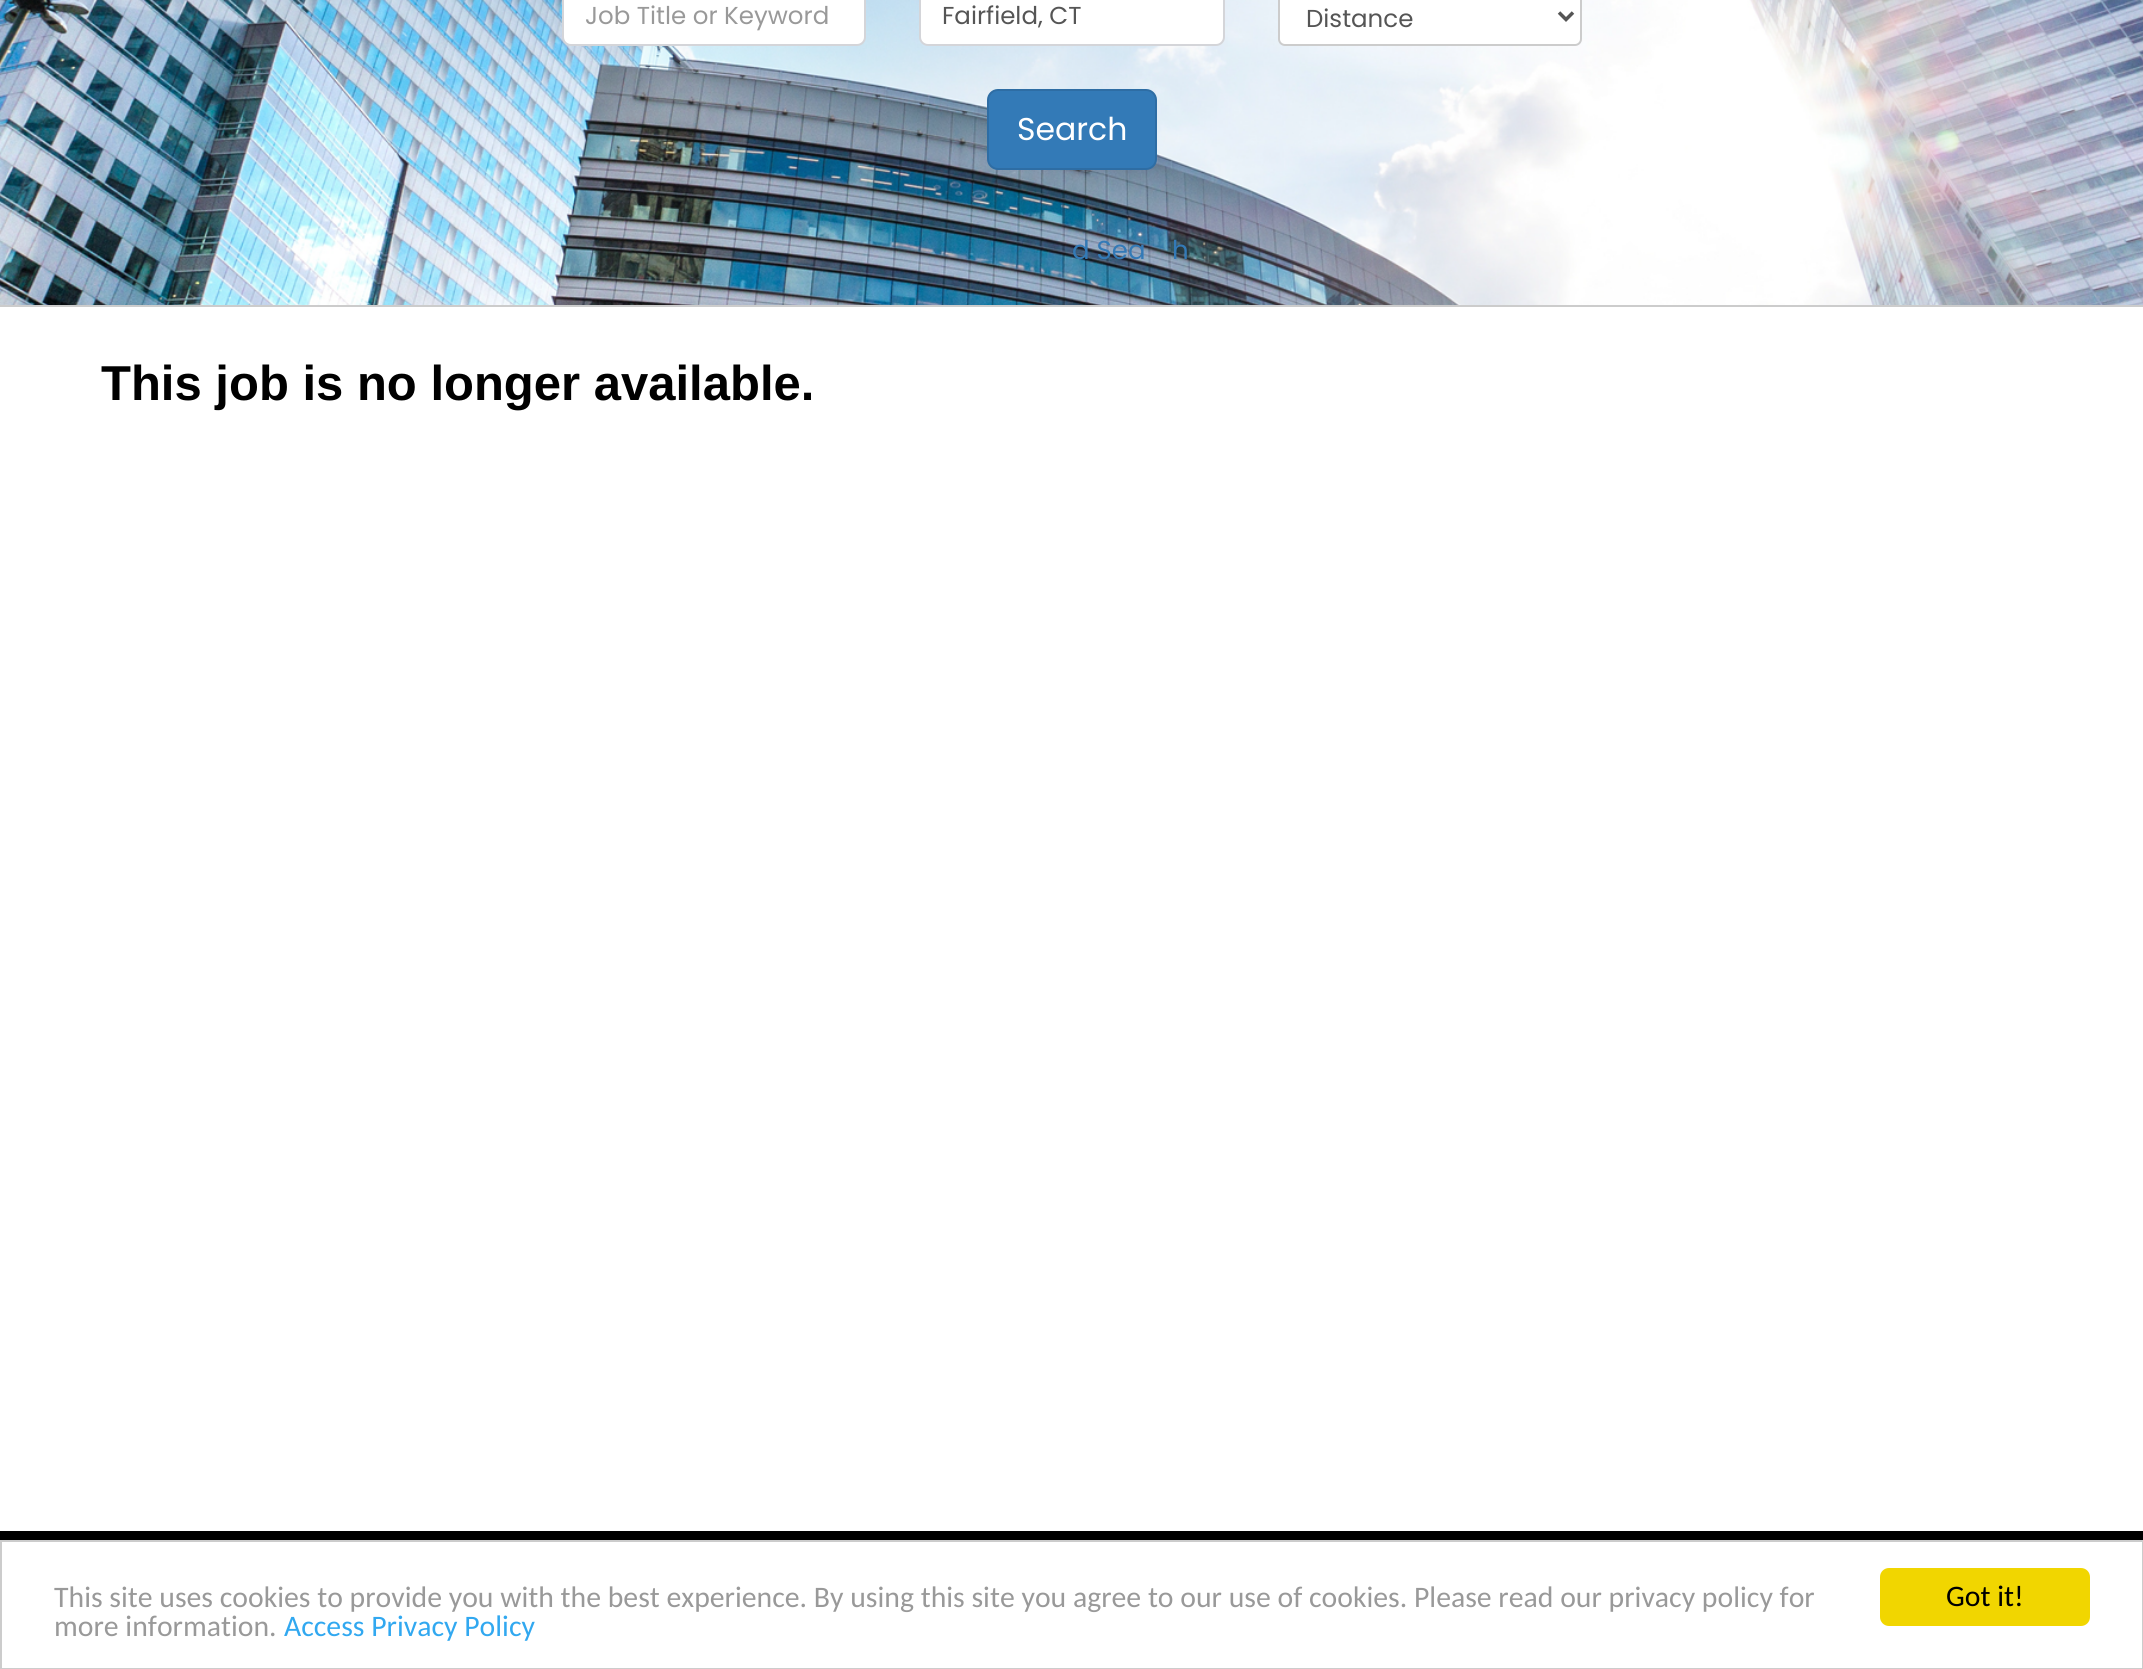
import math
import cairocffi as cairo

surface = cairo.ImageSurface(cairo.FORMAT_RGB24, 2143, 1669)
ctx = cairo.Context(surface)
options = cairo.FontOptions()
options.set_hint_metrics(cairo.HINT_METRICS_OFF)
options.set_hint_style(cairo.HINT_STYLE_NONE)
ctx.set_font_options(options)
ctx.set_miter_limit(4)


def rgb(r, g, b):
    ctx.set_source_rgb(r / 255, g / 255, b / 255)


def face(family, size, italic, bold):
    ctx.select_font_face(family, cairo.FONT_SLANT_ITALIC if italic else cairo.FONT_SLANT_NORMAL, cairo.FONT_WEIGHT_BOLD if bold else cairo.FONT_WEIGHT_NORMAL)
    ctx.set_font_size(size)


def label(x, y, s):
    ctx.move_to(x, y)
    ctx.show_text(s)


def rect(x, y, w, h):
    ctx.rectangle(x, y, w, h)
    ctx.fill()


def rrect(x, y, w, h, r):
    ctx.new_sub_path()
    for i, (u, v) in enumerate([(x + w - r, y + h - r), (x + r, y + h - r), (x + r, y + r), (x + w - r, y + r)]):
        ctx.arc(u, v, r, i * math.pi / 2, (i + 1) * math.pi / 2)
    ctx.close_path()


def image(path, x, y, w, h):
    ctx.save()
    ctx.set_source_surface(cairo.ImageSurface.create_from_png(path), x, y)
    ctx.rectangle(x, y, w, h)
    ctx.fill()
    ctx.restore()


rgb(255, 255, 255)
ctx.paint()
image('image0.png', 0, 0, 2143, 305)
rgb(204, 204, 204)
rect(0, 305, 2143, 2)
rgb(255, 255, 255)
rrect(563, -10, 302, 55, 8)
ctx.fill_preserve()
rgb(212, 213, 217)
ctx.stroke()
face('Poppins', 24.5, 0, 0)
rgb(153, 153, 153)
label(585, 24, 'Job Title or Keyword')
rgb(255, 255, 255)
rrect(920, -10, 304, 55, 8)
ctx.fill_preserve()
rgb(212, 213, 217)
ctx.stroke()
rgb(85, 85, 85)
label(942, 24, 'Fairfield, CT')
rgb(255, 255, 255)
rrect(1279, -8, 302, 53, 6)
ctx.fill_preserve()
rgb(204, 204, 204)
ctx.stroke()
ctx.new_path()
ctx.move_to(1559, 12.5)
ctx.line_to(1566, 19.5)
ctx.line_to(1573, 12.5)
rgb(85, 85, 85)
ctx.set_line_width(3.5)
ctx.stroke()
label(1306, 27, 'Distance')
rgb(51, 122, 183)
rrect(988, 90, 168, 79, 10)
ctx.fill_preserve()
rgb(46, 109, 164)
ctx.set_line_width(2)
ctx.stroke()
face('Poppins', 31.5, 0, 0)
rgb(255, 255, 255)
label(1017, 140, 'Search')
face('Poppins', 26, 0, 0)
rgb(51, 122, 183)
label(1072, 259, 'd Sea')
label(1172, 259, 'h')
face('Liberation Sans', 49, 0, 1)
rgb(0, 0, 0)
label(101, 400, 'This job is no longer available.')
rect(0, 1531, 2143, 9)
ctx.rectangle(1, 1541, 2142, 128)
rgb(204, 204, 204)
ctx.stroke()
face('Carlito', 29.75, 0, 0)
rgb(153, 153, 153)
label(54, 1607, 'This site uses cookies to provide you with the best experience. By using this site you agree to our use of cookies. Please read our privacy policy for')
label(54, 1636, 'more information.')
rgb(49, 168, 240)
label(284, 1636, 'Access Privacy Policy')
rgb(241, 214, 0)
rrect(1880, 1568, 210, 58, 9)
ctx.fill()
rgb(0, 0, 0)
label(1946, 1606, 'Got it!')
surface.write_to_png('render.png')
